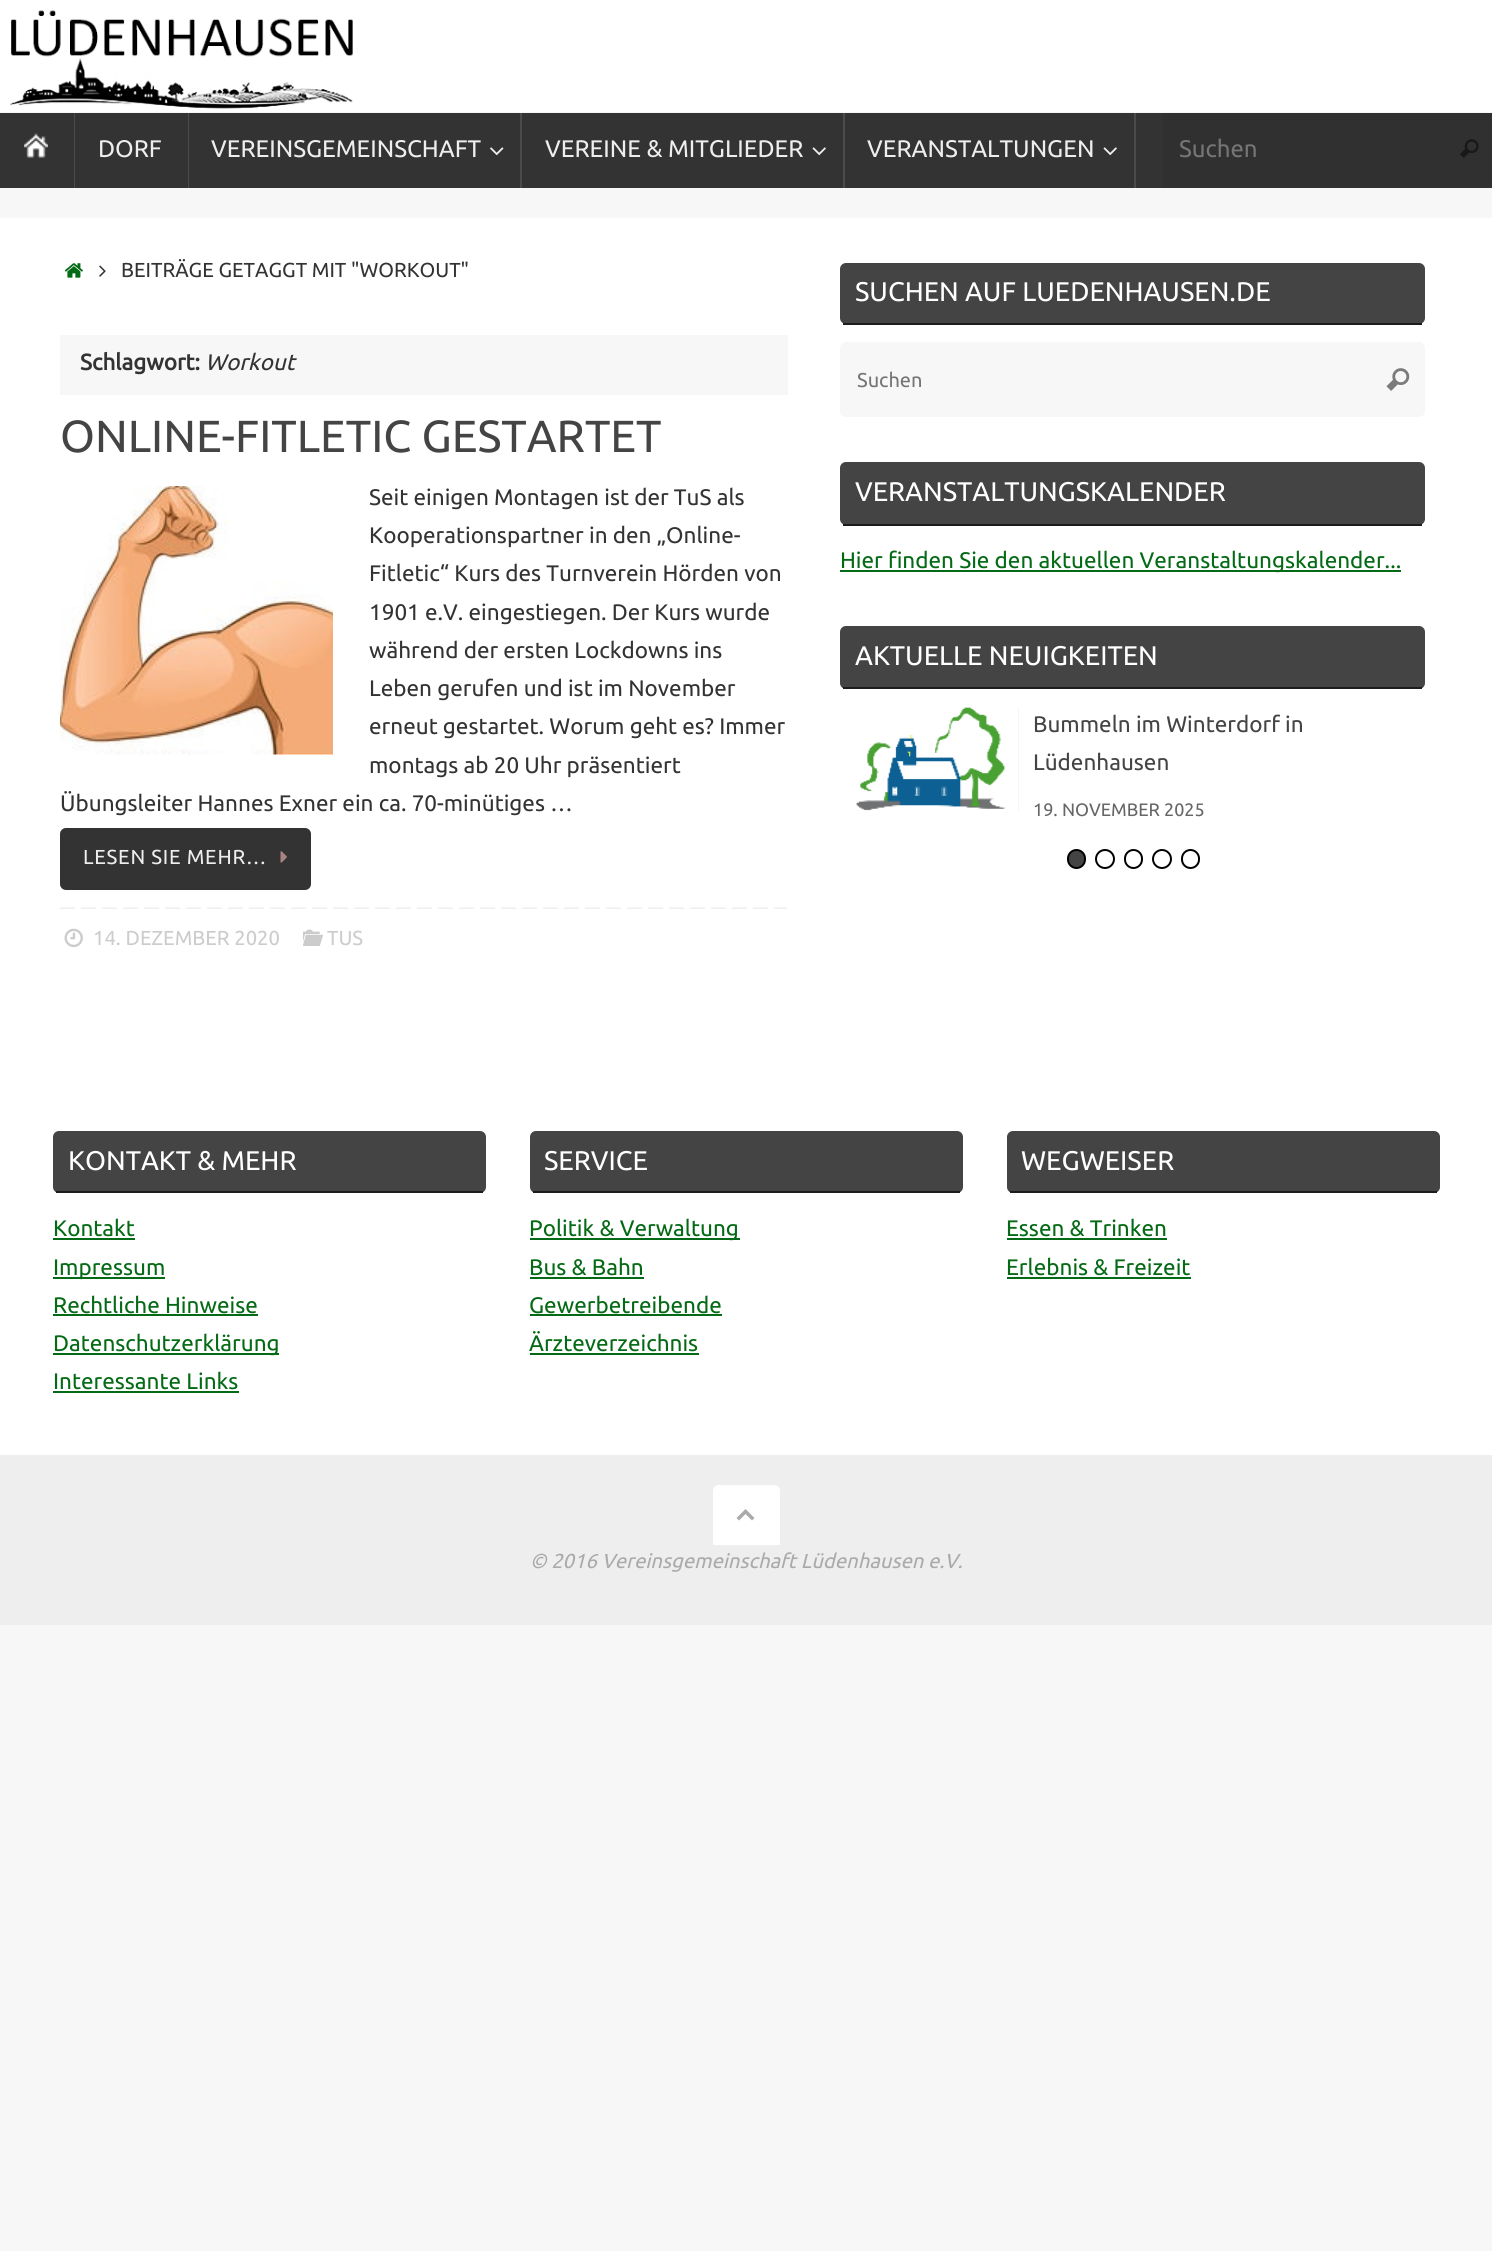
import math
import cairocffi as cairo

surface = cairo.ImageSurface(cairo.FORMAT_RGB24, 1492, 2251)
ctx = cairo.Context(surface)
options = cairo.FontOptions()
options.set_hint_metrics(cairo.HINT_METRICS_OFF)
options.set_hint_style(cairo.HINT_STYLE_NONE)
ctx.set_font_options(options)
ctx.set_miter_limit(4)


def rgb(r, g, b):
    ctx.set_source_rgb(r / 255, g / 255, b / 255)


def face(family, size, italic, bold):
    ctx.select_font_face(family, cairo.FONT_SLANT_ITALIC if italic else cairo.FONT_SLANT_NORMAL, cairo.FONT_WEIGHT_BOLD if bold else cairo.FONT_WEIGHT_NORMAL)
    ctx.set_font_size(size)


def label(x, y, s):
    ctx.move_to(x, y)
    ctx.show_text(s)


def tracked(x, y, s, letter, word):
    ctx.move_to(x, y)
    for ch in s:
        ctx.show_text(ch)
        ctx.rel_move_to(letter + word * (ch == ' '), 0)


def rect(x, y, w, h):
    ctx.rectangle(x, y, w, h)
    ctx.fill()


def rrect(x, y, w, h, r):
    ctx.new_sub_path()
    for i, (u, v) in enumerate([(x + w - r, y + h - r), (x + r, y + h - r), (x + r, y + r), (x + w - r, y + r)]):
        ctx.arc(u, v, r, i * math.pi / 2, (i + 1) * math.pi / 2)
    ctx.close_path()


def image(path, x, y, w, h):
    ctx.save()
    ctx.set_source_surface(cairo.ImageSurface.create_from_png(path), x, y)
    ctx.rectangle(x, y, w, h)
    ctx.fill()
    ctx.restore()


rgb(247, 247, 247)
ctx.paint()
image('image0.png', 0, 0, 1492, 112)
rgb(51, 51, 51)
rect(0, 113, 1163, 75)
rgb(75, 75, 75)
ctx.new_path()
ctx.move_to(2, 188)
ctx.line_to(75, 188)
ctx.line_to(75, 113)
ctx.line_to(74, 113)
ctx.line_to(74, 188)
ctx.close_path()
ctx.fill()
image('image1.png', 24, 133, 24, 25)
ctx.new_path()
ctx.move_to(75, 188)
ctx.line_to(189, 188)
ctx.line_to(189, 113)
ctx.line_to(188, 113)
ctx.line_to(188, 188)
ctx.close_path()
ctx.fill()
face('Ubuntu', 24, 0, 0)
rgb(238, 238, 238)
label(98, 157, 'DORF')
rgb(75, 75, 75)
ctx.new_path()
ctx.move_to(189, 188)
ctx.line_to(522, 188)
ctx.line_to(522, 113)
ctx.line_to(520, 113)
ctx.line_to(520, 188)
ctx.close_path()
ctx.fill()
rgb(238, 238, 238)
label(211, 157, 'VEREINSGEMEINSCHAFT')
image('image2.png', 490, 147, 14, 9)
rgb(75, 75, 75)
ctx.new_path()
ctx.move_to(522, 188)
ctx.line_to(845, 188)
ctx.line_to(845, 113)
ctx.line_to(843, 113)
ctx.line_to(843, 188)
ctx.close_path()
ctx.fill()
rgb(238, 238, 238)
label(545, 157, 'VEREINE & MITGLIEDER')
image('image3.png', 812, 147, 14, 9)
rgb(75, 75, 75)
ctx.new_path()
ctx.move_to(845, 188)
ctx.line_to(1136, 188)
ctx.line_to(1136, 113)
ctx.line_to(1134, 113)
ctx.line_to(1134, 188)
ctx.close_path()
ctx.fill()
rgb(238, 238, 238)
label(867, 157, 'VERANSTALTUNGEN')
image('image3.png', 1103, 147, 14, 9)
rgb(48, 48, 48)
rect(1163, 113, 329, 75)
rgb(117, 117, 117)
label(1179, 157, 'Suchen')
image('image4.png', 1460, 139, 19, 19)
rgb(255, 255, 255)
rect(0, 218, 1492, 1237)
image('image5.png', 64, 263, 19, 15)
image('image6.png', 99, 265, 7, 12)
face('Ubuntu', 20.25, 0, 0)
rgb(51, 51, 51)
label(121, 277, 'BEITRÄGE GETAGGT MIT "WORKOUT"')
rgb(247, 247, 247)
rect(60, 335, 728, 60)
face('Ubuntu', 22.5, 0, 1)
rgb(51, 51, 51)
label(80, 370, 'Schlagwort:')
face('Ubuntu', 22.5, 1, 0)
label(205, 370, 'Workout')
face('Ubuntu', 45, 0, 0)
rgb(68, 68, 68)
label(60, 452, 'ONLINE-FITLETIC GESTARTET')
image('image7.png', 60, 486, 273, 269)
face('Ubuntu', 22.5, 0, 0)
rgb(51, 51, 51)
label(369, 505, 'Seit einigen Montagen ist der TuS als')
label(369, 543, 'Kooperationspartner in den „Online-')
label(369, 581, 'Fitletic“ Kurs des Turnverein Hörden von')
label(369, 620, '1901 e.V. eingestiegen. Der Kurs wurde')
label(369, 658, 'während der ersten Lockdowns ins')
label(369, 696, 'Leben gerufen und ist im November')
label(369, 734, 'erneut gestartet. Worum geht es? Immer')
label(369, 773, 'montags ab 20 Uhr präsentiert')
label(60, 811, 'Übungsleiter Hannes Exner ein ca. 70-minütiges …')
rrect(60, 828, 251, 62, 6)
ctx.fill()
face('Ubuntu', 20.25, 0, 0)
rgb(238, 238, 238)
tracked(83, 864, 'LESEN SIE MEHR…', 0.75, 0)
image('image8.png', 280, 851, 7, 12)
image('image9.png', 60, 907, 728, 2)
image('image10.png', 64, 928, 19, 20)
rgb(204, 204, 204)
label(93, 945, '14. DEZEMBER 2020')
image('image11.png', 303, 929, 20, 17)
label(327, 945, 'TUS')
rgb(68, 68, 68)
rrect(840, 263, 585, 61, 6)
ctx.fill()
rgb(28, 28, 28)
rect(843, 323, 579, 2)
face('Ubuntu', 27, 0, 0)
rgb(255, 255, 255)
label(855, 301, 'SUCHEN AUF LUEDENHAUSEN.DE')
rgb(247, 247, 247)
rrect(840, 342, 585, 75, 6)
ctx.fill()
face('Ubuntu', 20, 0, 0)
rgb(117, 117, 117)
label(857, 387, 'Suchen')
image('image12.png', 1386, 368, 24, 23)
rgb(68, 68, 68)
rrect(840, 462, 585, 63, 6)
ctx.fill()
rgb(28, 28, 28)
rect(843, 524, 579, 2)
face('Ubuntu', 27, 0, 0)
rgb(255, 255, 255)
label(855, 501, 'VERANSTALTUNGSKALENDER')
rgb(5, 106, 21)
rect(840, 570, 561, 2)
face('Ubuntu', 22.5, 0, 0)
label(840, 568, 'Hier finden Sie den aktuellen Veranstaltungskalender...')
rgb(68, 68, 68)
rrect(840, 626, 585, 63, 6)
ctx.fill()
rgb(28, 28, 28)
rect(843, 687, 579, 2)
face('Ubuntu', 27, 0, 0)
rgb(255, 255, 255)
label(855, 665, 'AKTUELLE NEUIGKEITEN')
rgb(241, 241, 241)
rect(1018, 707, 1, 105)
image('image13.png', 840, 707, 179, 105)
face('Ubuntu', 22.5, 0, 0)
rgb(68, 68, 68)
label(1033, 732, 'Bummeln im Winterdorf in')
label(1033, 770, 'Lüdenhausen')
face('Ubuntu', 18, 0, 0)
rgb(102, 102, 102)
label(1033, 816, '19. NOVEMBER 2025')
rgb(68, 68, 68)
rrect(1068, 850, 17, 18, 8.5)
ctx.fill_preserve()
rgb(0, 0, 0)
ctx.stroke()
ctx.arc(1105, 859, 9, 0, 2 * math.pi)
ctx.stroke()
rrect(1125, 850, 17, 18, 8.5)
ctx.stroke()
ctx.arc(1162, 859, 9, 0, 2 * math.pi)
ctx.stroke()
rrect(1182, 850, 17, 18, 8.5)
ctx.stroke()
rgb(68, 68, 68)
rrect(53, 1131, 433, 62, 6)
ctx.fill()
rgb(28, 28, 28)
rect(56, 1191, 427, 2)
face('Ubuntu', 27, 0, 0)
rgb(255, 255, 255)
label(68, 1170, 'KONTAKT & MEHR')
face('Ubuntu', 22.5, 0, 0)
rgb(5, 106, 21)
label(53, 1236, 'Kontakt')
rect(53, 1238, 82, 2)
rect(53, 1277, 112, 2)
label(53, 1275, 'Impressum')
label(53, 1313, 'Rechtliche Hinweise')
rect(53, 1314, 205, 2)
rect(53, 1353, 226, 2)
label(53, 1351, 'Datenschutzerklärung')
label(53, 1389, 'Interessante Links')
rect(53, 1391, 186, 2)
rgb(68, 68, 68)
rrect(530, 1131, 433, 62, 6)
ctx.fill()
rgb(28, 28, 28)
rect(533, 1191, 427, 2)
face('Ubuntu', 27, 0, 0)
rgb(255, 255, 255)
label(544, 1170, 'SERVICE')
rgb(5, 106, 21)
rect(530, 1238, 210, 2)
face('Ubuntu', 22.5, 0, 0)
label(529, 1236, 'Politik & Verwaltung')
label(529, 1275, 'Bus & Bahn')
rect(530, 1277, 114, 2)
label(529, 1313, 'Gewerbetreibende')
rect(530, 1314, 192, 2)
label(529, 1351, 'Ärzteverzeichnis')
rect(530, 1353, 169, 2)
rgb(68, 68, 68)
rrect(1007, 1131, 433, 62, 6)
ctx.fill()
rgb(28, 28, 28)
rect(1010, 1191, 427, 2)
face('Ubuntu', 27, 0, 0)
rgb(255, 255, 255)
label(1021, 1170, 'WEGWEISER')
face('Ubuntu', 22.5, 0, 0)
rgb(5, 106, 21)
label(1006, 1236, 'Essen & Trinken')
rect(1007, 1238, 160, 2)
label(1006, 1275, 'Erlebnis & Freizeit')
rect(1007, 1277, 184, 2)
rgb(238, 238, 238)
rect(0, 1455, 1492, 170)
rgb(255, 255, 255)
ctx.new_path()
ctx.move_to(719, 1485)
ctx.line_to(774, 1485)
ctx.curve_to(777.5, 1485, 780, 1487.5, 780, 1491)
ctx.line_to(780, 1545)
ctx.line_to(713, 1545)
ctx.line_to(713, 1491)
ctx.curve_to(713, 1487.5, 715.5, 1485, 719, 1485)
ctx.close_path()
ctx.fill()
rgb(170, 170, 170)
ctx.new_path()
ctx.move_to(736.5, 1518)
ctx.line_to(745.5, 1509)
ctx.line_to(754.5, 1518)
ctx.line_to(752, 1520.5)
ctx.line_to(745.5, 1514)
ctx.line_to(739, 1520.5)
ctx.close_path()
ctx.fill()
face('Ubuntu', 20.25, 1, 0)
label(530, 1568, '© 2016 Vereinsgemeinschaft Lüdenhausen e.V.')
surface.write_to_png('render.png')
